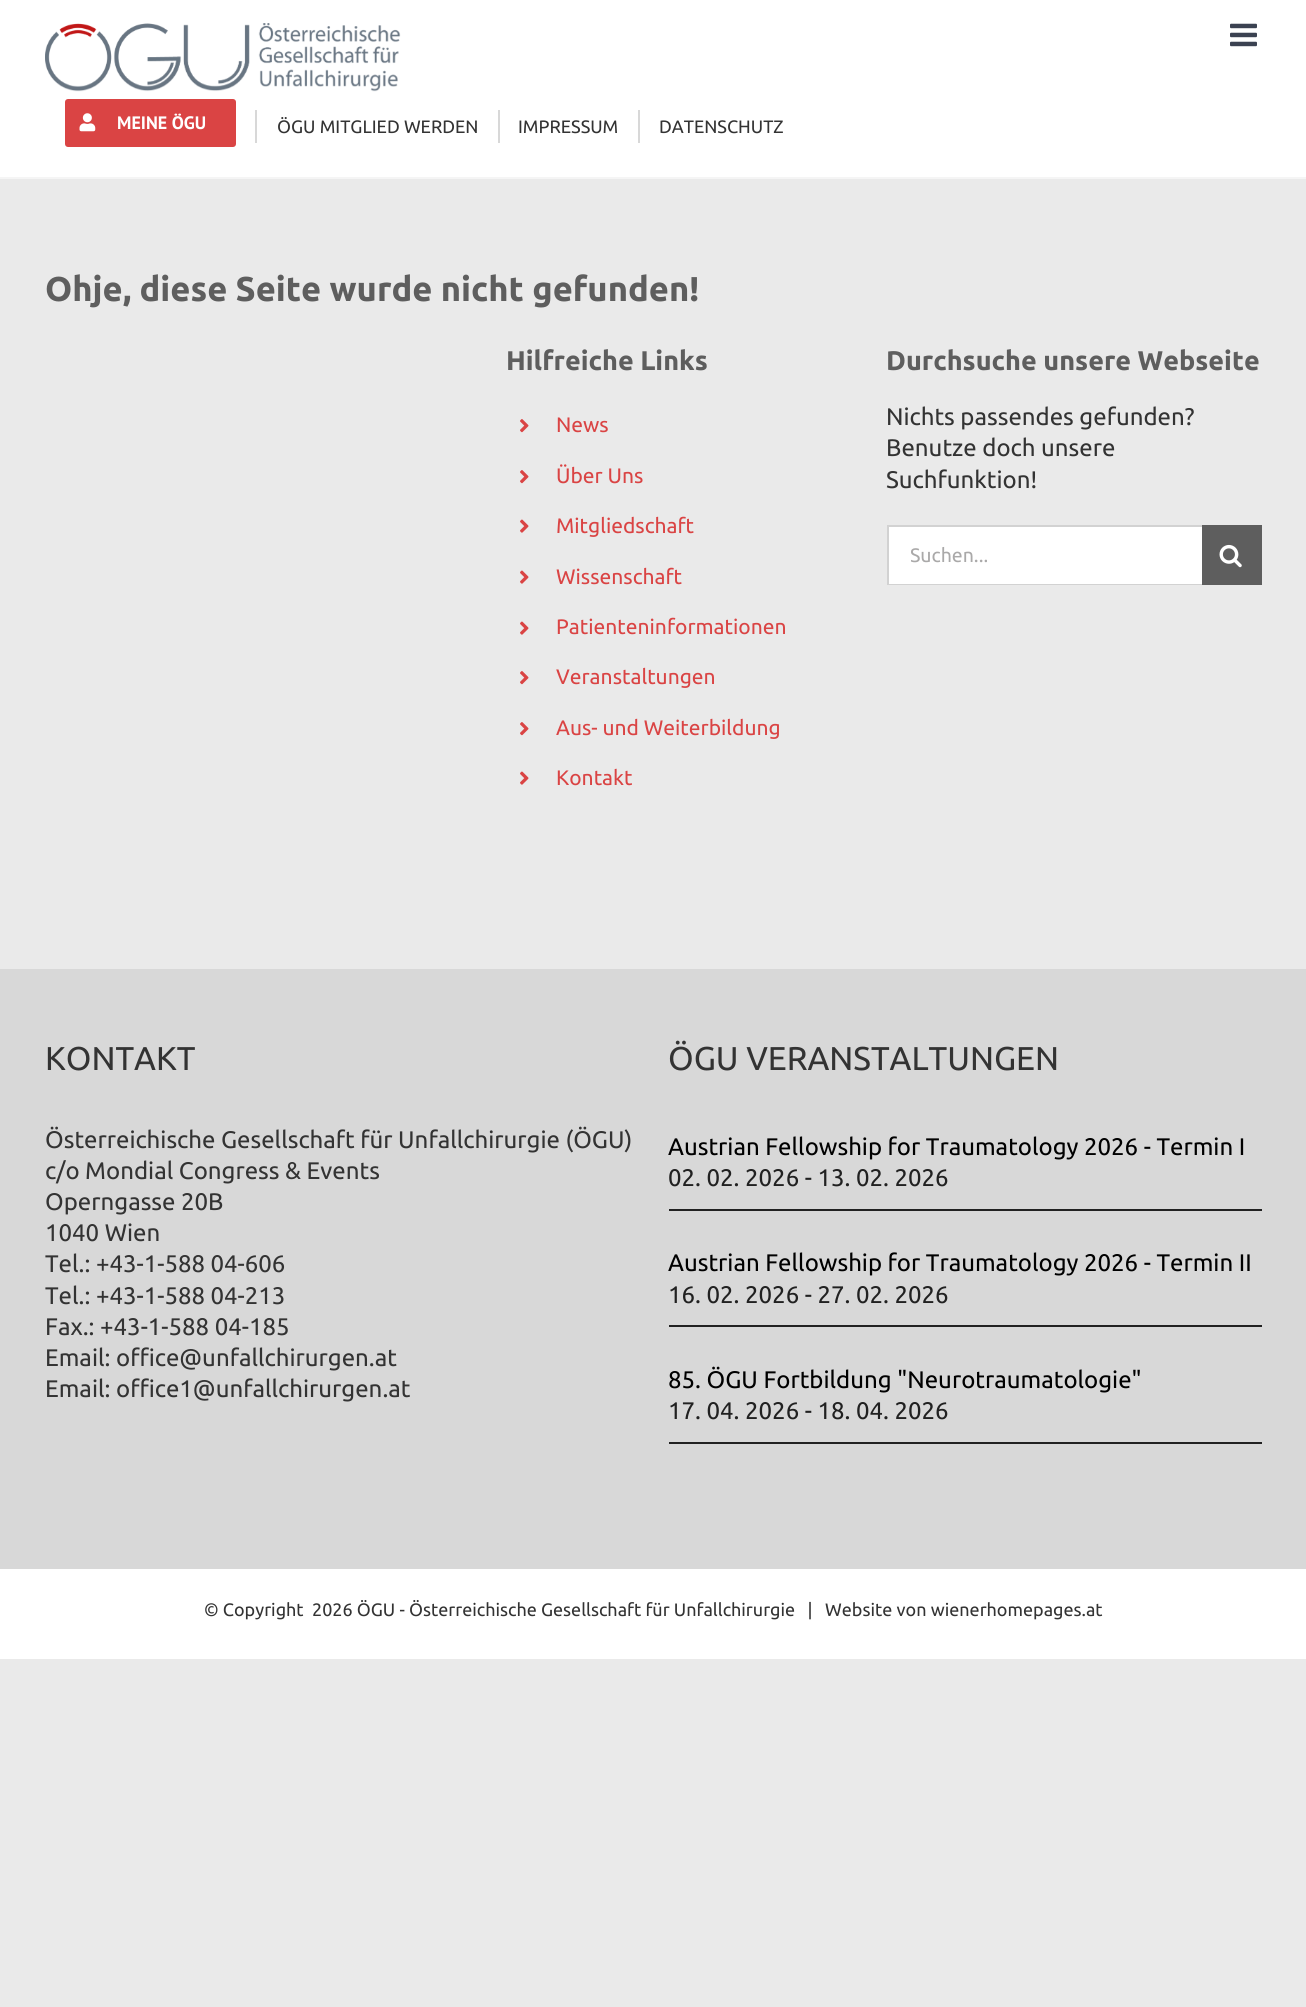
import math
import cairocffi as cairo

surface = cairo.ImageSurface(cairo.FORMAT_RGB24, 1306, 2007)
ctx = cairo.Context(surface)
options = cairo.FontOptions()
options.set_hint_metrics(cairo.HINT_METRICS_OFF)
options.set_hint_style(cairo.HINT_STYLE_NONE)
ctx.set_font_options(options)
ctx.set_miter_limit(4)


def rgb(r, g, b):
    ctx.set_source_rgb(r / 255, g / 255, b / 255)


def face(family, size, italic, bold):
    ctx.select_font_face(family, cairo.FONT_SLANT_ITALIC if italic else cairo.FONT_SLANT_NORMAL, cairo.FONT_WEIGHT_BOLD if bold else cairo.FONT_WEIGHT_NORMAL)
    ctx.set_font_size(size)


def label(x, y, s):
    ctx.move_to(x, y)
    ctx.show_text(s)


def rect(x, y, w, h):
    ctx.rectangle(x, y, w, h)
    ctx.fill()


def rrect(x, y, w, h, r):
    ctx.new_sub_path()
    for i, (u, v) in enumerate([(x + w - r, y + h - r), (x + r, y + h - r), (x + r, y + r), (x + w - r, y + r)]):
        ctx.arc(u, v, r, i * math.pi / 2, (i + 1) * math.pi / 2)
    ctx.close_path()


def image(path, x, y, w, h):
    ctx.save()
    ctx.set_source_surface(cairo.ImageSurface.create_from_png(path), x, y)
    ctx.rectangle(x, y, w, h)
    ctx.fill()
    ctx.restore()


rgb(234, 234, 234)
ctx.paint()
rgb(255, 255, 255)
rect(0, 0, 1306, 177)
rgb(245, 245, 245)
rect(0, 177, 1306, 2)
image('image0.png', 1230, 23, 27, 24)
image('image1.png', 45, 23, 356, 69)
rgb(218, 68, 68)
rrect(65, 99, 171, 48, 3)
ctx.fill()
image('image2.png', 79, 113, 17, 19)
face('PT Sans', 18, 0, 1)
rgb(255, 255, 255)
label(117, 129, 'MEINE ÖGU')
rgb(216, 216, 216)
rect(255, 110, 2, 33)
face('Ubuntu', 18, 0, 0)
rgb(51, 51, 51)
label(277, 133, 'ÖGU MITGLIED WERDEN')
rgb(216, 216, 216)
rect(498, 110, 2, 33)
rgb(51, 51, 51)
label(518, 133, 'IMPRESSUM')
rgb(216, 216, 216)
rect(638, 110, 2, 33)
rgb(51, 51, 51)
label(659, 133, 'DATENSCHUTZ')
face('Ubuntu', 34.5, 0, 1)
rgb(94, 94, 94)
label(45, 301, 'Ohje, diese Seite wurde nicht gefunden!')
face('Ubuntu', 27, 0, 1)
label(506, 370, 'Hilfreiche Links')
image('image3.png', 520, 419, 9, 14)
face('Ubuntu', 21, 0, 0)
rgb(218, 68, 68)
label(556, 432, 'News')
image('image3.png', 520, 470, 9, 14)
label(556, 483, 'Über Uns')
image('image4.png', 520, 519, 9, 14)
label(556, 533, 'Mitgliedschaft')
image('image4.png', 520, 570, 9, 14)
label(556, 584, 'Wissenschaft')
image('image4.png', 520, 621, 9, 14)
label(556, 634, 'Patienteninformationen')
image('image3.png', 520, 671, 9, 14)
label(556, 684, 'Veranstaltungen')
image('image3.png', 520, 722, 9, 14)
label(556, 735, 'Aus- und Weiterbildung')
image('image4.png', 520, 771, 9, 14)
label(556, 785, 'Kontakt')
face('Ubuntu', 27, 0, 1)
rgb(94, 94, 94)
label(886, 370, 'Durchsuche unsere Webseite')
face('Ubuntu', 24, 0, 0)
rgb(51, 51, 51)
label(886, 425, 'Nichts passendes gefunden?')
label(886, 456, 'Benutze doch unsere')
label(886, 488, 'Suchfunktion!')
rgb(255, 255, 255)
rect(889, 527, 313, 57)
rgb(210, 210, 210)
rect(887, 525, 315, 2)
rect(887, 584, 315, 1)
rect(887, 525, 2, 60)
ctx.save()
ctx.rectangle(911, 545, 249, 21)
ctx.clip()
face('Ubuntu', 19.5, 0, 0)
rgb(170, 169, 169)
label(910, 562, 'Suchen...')
ctx.restore()
rgb(94, 94, 94)
rect(1202, 525, 60, 60)
image('image5.png', 1219, 544, 23, 24)
rgb(216, 216, 216)
rect(0, 969, 1306, 600)
face('Ubuntu', 33, 0, 0)
rgb(51, 51, 51)
label(45, 1070, 'KONTAKT')
face('Ubuntu', 24, 0, 0)
label(45, 1148, 'Österreichische Gesellschaft für Unfallchirurgie (ÖGU)')
label(45, 1179, 'c/o Mondial Congress & Events')
label(45, 1210, 'Operngasse 20B')
label(45, 1241, '1040 Wien')
label(45, 1272, 'Tel.: +43-1-588 04-606')
label(45, 1304, 'Tel.: +43-1-588 04-213')
label(45, 1335, 'Fax.: +43-1-588 04-185')
label(45, 1366, 'Email: office@unfallchirurgen.at')
label(45, 1397, 'Email: office1@unfallchirurgen.at')
face('Ubuntu', 33, 0, 0)
label(668, 1070, 'ÖGU VERANSTALTUNGEN')
rgb(33, 33, 33)
rect(669, 1209, 593, 2)
face('Ubuntu', 24, 0, 0)
rgb(0, 0, 0)
label(668, 1155, 'Austrian Fellowship for Traumatology 2026 - Termin I')
rgb(33, 33, 33)
label(668, 1186, '02. 02. 2026 - 13. 02. 2026')
rect(669, 1325, 593, 2)
rgb(0, 0, 0)
label(668, 1271, 'Austrian Fellowship for Traumatology 2026 - Termin II')
rgb(33, 33, 33)
label(668, 1303, '16. 02. 2026 - 27. 02. 2026')
rect(669, 1442, 593, 2)
rgb(0, 0, 0)
label(668, 1388, '85. ÖGU Fortbildung "Neurotraumatologie"')
rgb(33, 33, 33)
label(668, 1419, '17. 04. 2026 - 18. 04. 2026')
rgb(255, 255, 255)
rect(0, 1569, 1306, 90)
face('Ubuntu', 18, 0, 0)
rgb(51, 51, 51)
label(204, 1616, '© Copyright')
label(312, 1616, '2026 ÖGU - Österreichische Gesellschaft für Unfallchirurgie   |   Website von wienerhomepages.at')
surface.write_to_png('render.png')
